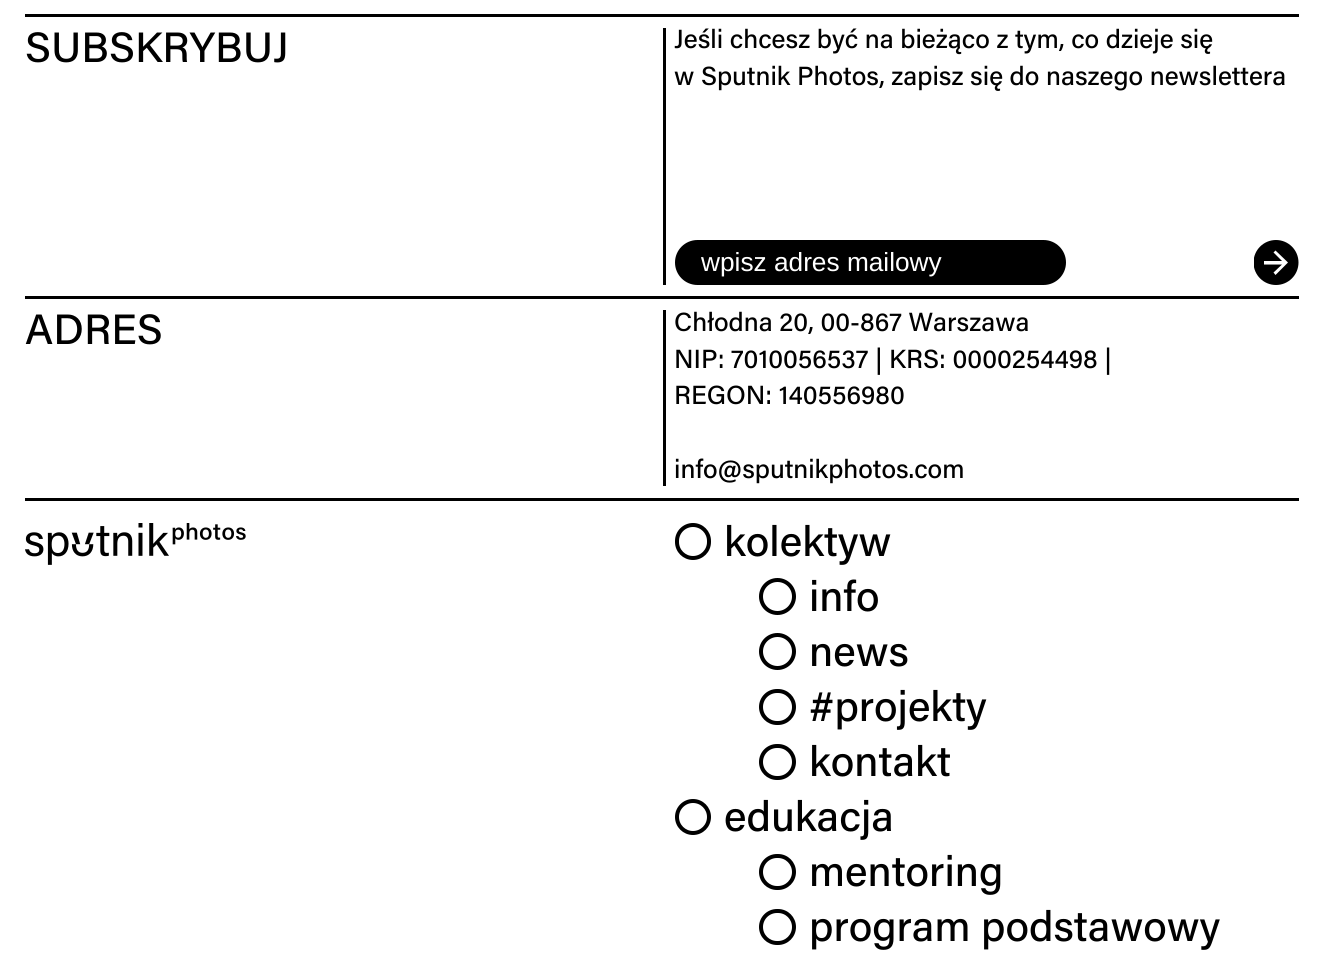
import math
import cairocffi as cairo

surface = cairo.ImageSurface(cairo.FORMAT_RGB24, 1323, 956)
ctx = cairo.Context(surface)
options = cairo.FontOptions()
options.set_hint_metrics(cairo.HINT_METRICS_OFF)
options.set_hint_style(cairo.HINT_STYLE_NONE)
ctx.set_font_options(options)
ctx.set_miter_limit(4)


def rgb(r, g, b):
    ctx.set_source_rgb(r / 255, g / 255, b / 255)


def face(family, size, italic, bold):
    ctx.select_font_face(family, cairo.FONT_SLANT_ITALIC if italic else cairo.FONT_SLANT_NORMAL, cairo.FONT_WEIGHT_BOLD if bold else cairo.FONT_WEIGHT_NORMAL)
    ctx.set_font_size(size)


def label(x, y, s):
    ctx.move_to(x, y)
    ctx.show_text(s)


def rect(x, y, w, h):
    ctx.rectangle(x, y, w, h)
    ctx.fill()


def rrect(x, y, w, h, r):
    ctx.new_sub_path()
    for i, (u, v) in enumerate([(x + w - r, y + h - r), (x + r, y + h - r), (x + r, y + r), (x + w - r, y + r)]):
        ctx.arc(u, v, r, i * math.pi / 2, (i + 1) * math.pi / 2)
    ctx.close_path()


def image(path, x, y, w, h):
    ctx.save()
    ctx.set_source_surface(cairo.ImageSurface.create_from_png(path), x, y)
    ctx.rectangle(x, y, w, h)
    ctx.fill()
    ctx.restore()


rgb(255, 255, 255)
ctx.paint()
rgb(0, 0, 0)
rect(25, 14, 1274, 3)
face('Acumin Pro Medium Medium', 42.4, 0, 0)
label(25, 62, 'SUBSKRYBUJ')
rect(663, 28, 3, 257)
face('Acumin Pro Medium Medium', 26.25, 0, 0)
label(674, 48, 'Jeśli chcesz być na bieżąco z tym, co dzieje się')
label(674, 85, 'w Sputnik Photos, zapisz się do naszego newslettera')
rrect(675, 240, 391, 45, 22.5)
ctx.fill()
face('Liberation Sans', 26.25, 0, 0)
rgb(255, 255, 255)
label(701, 271, 'wpisz adres mailowy')
ctx.save()
ctx.rectangle(1254, 240, 45, 45)
ctx.clip()
rgb(0, 0, 0)
ctx.arc(1276, 262.5, 22.5, 0, 2 * math.pi)
ctx.fill()
ctx.restore()
ctx.new_path()
ctx.move_to(1282, 261)
ctx.line_to(1273.5, 252.5)
ctx.line_to(1275.5, 250.5)
ctx.line_to(1288, 262.5)
ctx.line_to(1275.5, 275)
ctx.line_to(1273.5, 272.5)
ctx.line_to(1282, 264.5)
ctx.line_to(1264, 264.5)
ctx.line_to(1264, 261)
ctx.close_path()
ctx.fill()
rgb(0, 0, 0)
rect(25, 296, 1274, 3)
face('Acumin Pro Medium Medium', 42.4, 0, 0)
label(25, 344, 'ADRES')
rect(663, 310, 3, 176)
face('Acumin Pro Medium Medium', 26.25, 0, 0)
label(674, 331, 'Chłodna 20, 00-867 Warszawa')
label(674, 368, 'NIP: 7010056537 | KRS: 0000254498 |')
label(674, 404, 'REGON: 140556980')
label(674, 478, 'info@sputnikphotos.com')
rect(25, 498, 1274, 3)
image('image0.png', 25, 523, 221, 42)
rrect(677, 525, 32, 33, 16)
ctx.set_line_width(4)
ctx.stroke()
face('Acumin Pro Medium Medium', 42.4, 0, 0)
label(724, 556, 'kolektyw')
ctx.new_path()
ctx.arc(777.5, 596.5, 16.5, 0, 2 * math.pi)
ctx.stroke()
label(809, 611, 'info')
ctx.new_path()
ctx.arc(777.5, 651.5, 16.5, 0, 2 * math.pi)
ctx.stroke()
label(809, 666, 'news')
rrect(761, 691, 33, 32, 16)
ctx.stroke()
label(809, 721, '#projekty')
rrect(761, 746, 33, 32, 16)
ctx.stroke()
label(809, 776, 'kontakt')
ctx.new_path()
ctx.arc(693, 817, 16, 0, 2 * math.pi)
ctx.stroke()
label(724, 831, 'edukacja')
rrect(761, 856, 33, 32, 16)
ctx.stroke()
label(809, 886, 'mentoring')
rrect(761, 911, 33, 32, 16)
ctx.stroke()
label(809, 941, 'program podstawowy')
surface.write_to_png('render.png')
